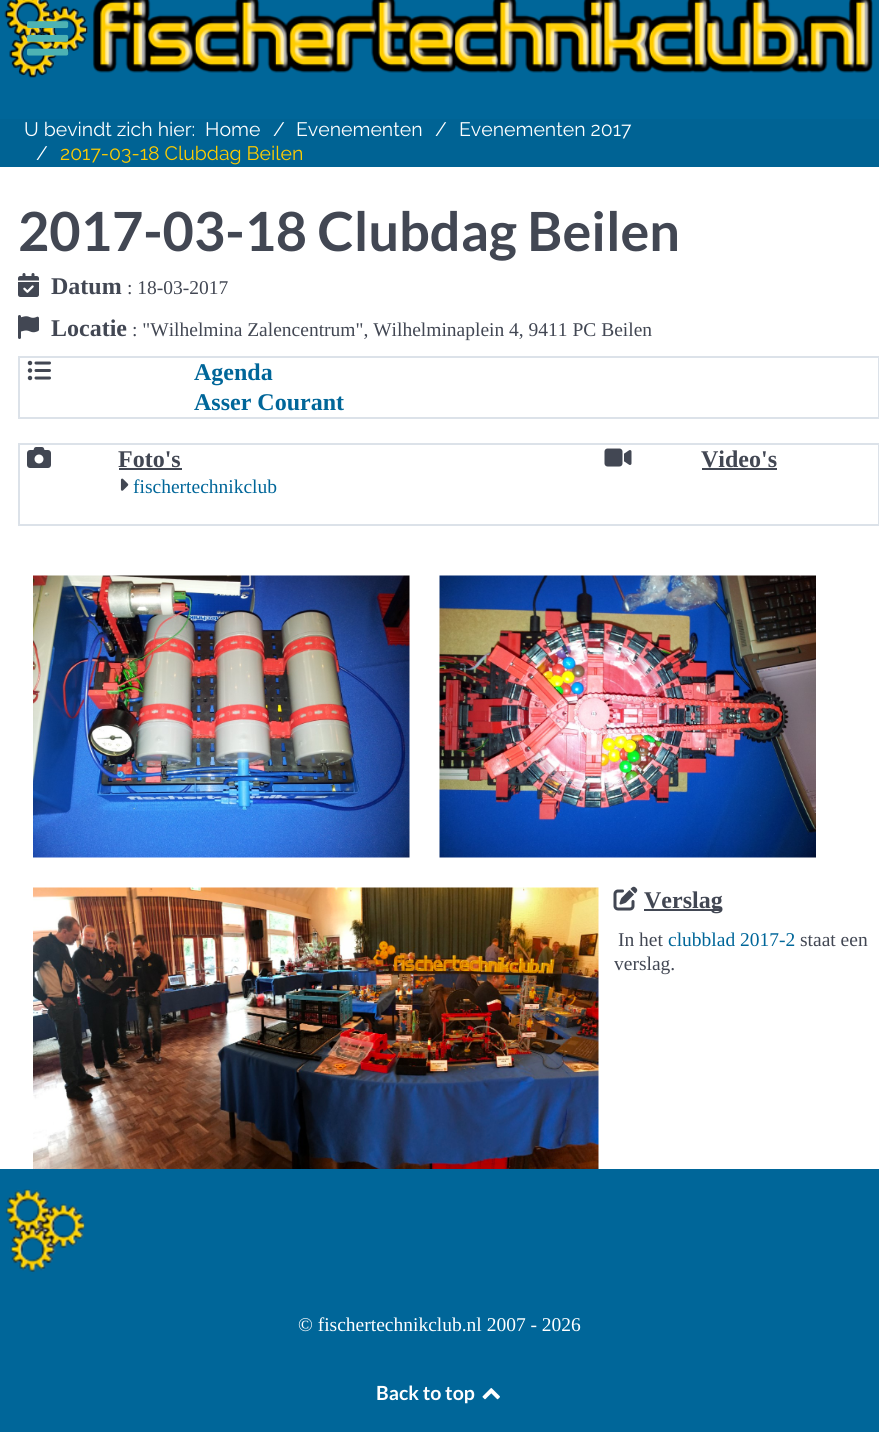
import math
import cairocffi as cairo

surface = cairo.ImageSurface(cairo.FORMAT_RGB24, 879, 1432)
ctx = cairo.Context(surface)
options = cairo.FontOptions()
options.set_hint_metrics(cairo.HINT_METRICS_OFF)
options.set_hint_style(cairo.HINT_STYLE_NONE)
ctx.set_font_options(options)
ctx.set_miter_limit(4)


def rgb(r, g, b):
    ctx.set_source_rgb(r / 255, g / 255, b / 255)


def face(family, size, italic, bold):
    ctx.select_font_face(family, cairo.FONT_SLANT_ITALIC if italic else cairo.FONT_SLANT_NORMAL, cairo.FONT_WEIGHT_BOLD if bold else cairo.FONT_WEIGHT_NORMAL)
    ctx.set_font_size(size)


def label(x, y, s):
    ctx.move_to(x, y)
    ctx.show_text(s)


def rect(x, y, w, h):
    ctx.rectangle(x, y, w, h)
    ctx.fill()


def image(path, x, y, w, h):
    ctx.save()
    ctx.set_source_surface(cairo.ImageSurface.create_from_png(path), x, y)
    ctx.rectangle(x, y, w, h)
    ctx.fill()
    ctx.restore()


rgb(255, 255, 255)
ctx.paint()
rgb(0, 102, 153)
rect(0, 0, 879, 119)
image('image1.png', 4, 0, 869, 78)
image('image0.png', 27, 21, 42, 35)
rgb(0, 99, 148)
rect(0, 119, 879, 48)
face('Raleway', 19.5, 0, 0)
rgb(255, 255, 255)
label(24, 136, 'U bevindt zich hier:')
label(205, 136, 'Home')
label(273, 136, '/')
label(296, 136, 'Evenementen')
label(435, 136, '/')
label(459, 136, 'Evenementen 2017')
label(36, 160, '/')
rgb(255, 204, 0)
label(60, 160, '2017-03-18 Clubdag Beilen')
face('Lato', 54, 0, 1)
rgb(66, 71, 83)
label(18, 251, '2017-03-18 Clubdag Beilen')
image('image2.png', 18, 273, 21, 24)
face('Liberation Serif', 24, 0, 1)
label(51, 294, 'Datum')
face('Liberation Serif', 19.5, 0, 0)
label(127, 294, ': 18-03-2017')
image('image3.png', 18, 315, 21, 24)
face('Liberation Serif', 24, 0, 1)
label(51, 336, 'Locatie')
face('Liberation Serif', 19.5, 0, 0)
label(132, 336, ': "Wilhelmina Zalencentrum", Wilhelminaplein 4, 9411 PC Beilen')
rgb(220, 226, 233)
rect(18, 356, 861, 2)
rect(878, 356, 1, 63)
rect(18, 417, 861, 2)
rect(18, 356, 2, 63)
image('image4.png', 27, 360, 24, 21)
face('Liberation Serif', 24, 0, 1)
rgb(0, 102, 153)
label(194, 380, 'Agenda')
label(194, 410, 'Asser Courant')
rgb(220, 226, 233)
rect(18, 443, 861, 2)
rect(878, 443, 1, 82)
rect(18, 524, 861, 2)
rect(18, 443, 2, 82)
image('image5.png', 27, 447, 24, 21)
rgb(66, 71, 83)
label(118, 467, 'Foto\'s')
rect(119, 468, 63, 2)
image('image6.png', 604, 448, 28, 19)
label(701, 467, 'Video\'s')
rect(702, 468, 75, 2)
image('image7.png', 120, 478, 9, 13)
face('Liberation Serif', 19.5, 0, 0)
rgb(0, 102, 153)
label(133, 493, 'fischertechnikclub')
image('image8.png', 33, 575, 377, 283)
image('image9.png', 439, 575, 377, 283)
image('image10.png', 33, 887, 566, 282)
image('image11.png', 613, 886, 25, 25)
rgb(66, 71, 83)
rect(644, 909, 78, 2)
face('Liberation Serif', 24, 0, 1)
label(644, 908, 'Verslag')
face('Liberation Serif', 19.5, 0, 0)
label(618, 946, 'In het')
rgb(0, 102, 153)
label(668, 946, 'clubblad 2017-2')
rgb(66, 71, 83)
label(800, 946, 'staat een')
label(614, 970, 'verslag.')
rgb(0, 102, 153)
rect(0, 1169, 879, 263)
image('image12.png', 5, 1189, 80, 83)
rgb(255, 255, 255)
label(298, 1331, '© fischertechnikclub.nl 2007 - 2026')
face('Lato', 19.5, 0, 1)
label(376, 1400, 'Back to top')
image('image13.png', 482, 1388, 18, 12)
surface.write_to_png('render.png')
